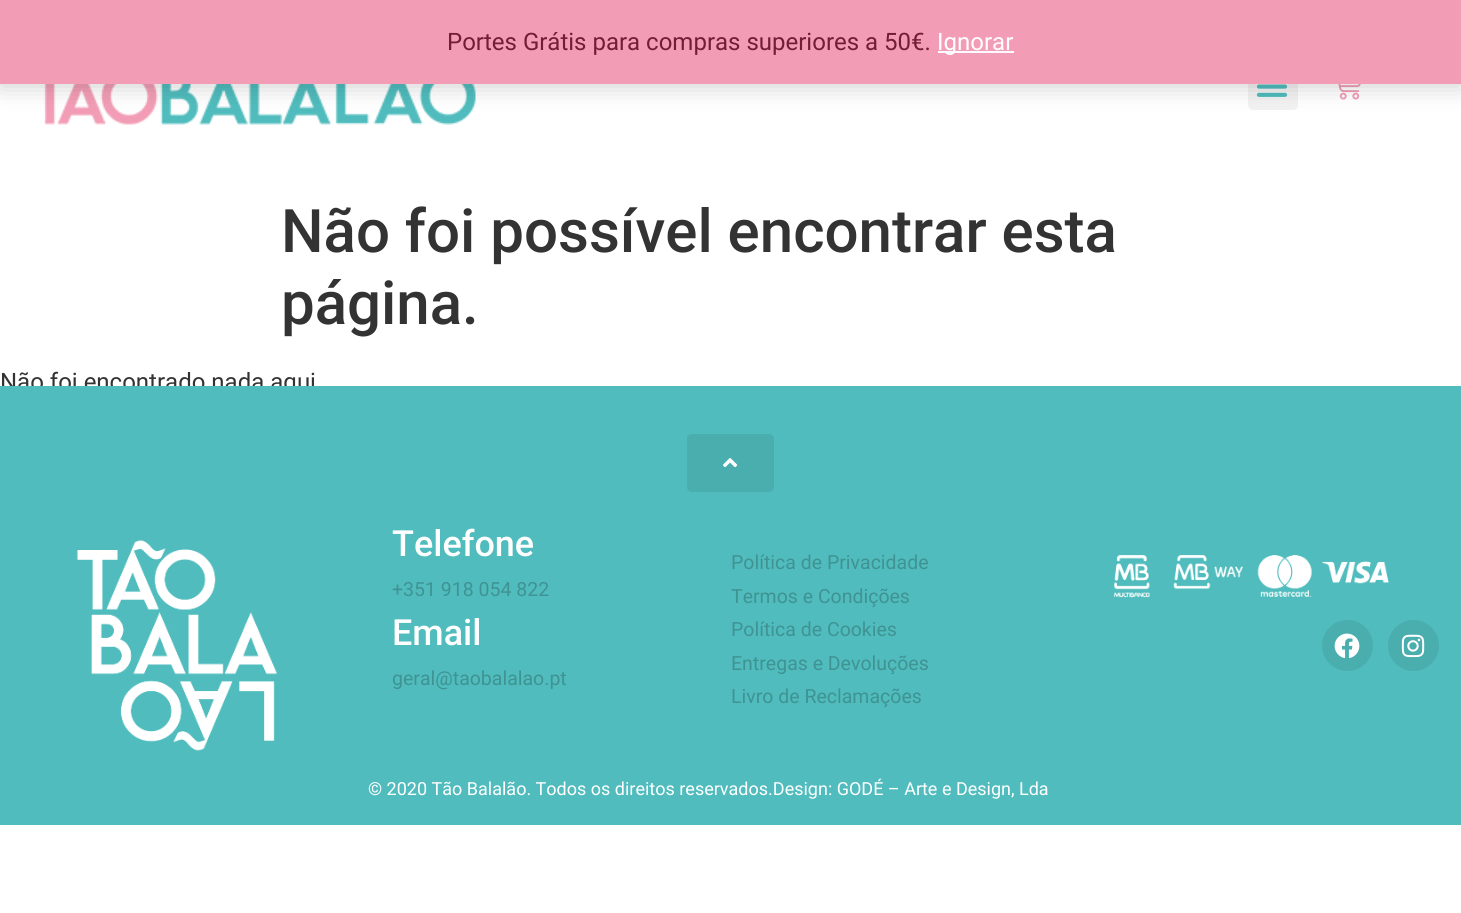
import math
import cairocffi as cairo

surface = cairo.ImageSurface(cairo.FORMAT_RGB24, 1461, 913)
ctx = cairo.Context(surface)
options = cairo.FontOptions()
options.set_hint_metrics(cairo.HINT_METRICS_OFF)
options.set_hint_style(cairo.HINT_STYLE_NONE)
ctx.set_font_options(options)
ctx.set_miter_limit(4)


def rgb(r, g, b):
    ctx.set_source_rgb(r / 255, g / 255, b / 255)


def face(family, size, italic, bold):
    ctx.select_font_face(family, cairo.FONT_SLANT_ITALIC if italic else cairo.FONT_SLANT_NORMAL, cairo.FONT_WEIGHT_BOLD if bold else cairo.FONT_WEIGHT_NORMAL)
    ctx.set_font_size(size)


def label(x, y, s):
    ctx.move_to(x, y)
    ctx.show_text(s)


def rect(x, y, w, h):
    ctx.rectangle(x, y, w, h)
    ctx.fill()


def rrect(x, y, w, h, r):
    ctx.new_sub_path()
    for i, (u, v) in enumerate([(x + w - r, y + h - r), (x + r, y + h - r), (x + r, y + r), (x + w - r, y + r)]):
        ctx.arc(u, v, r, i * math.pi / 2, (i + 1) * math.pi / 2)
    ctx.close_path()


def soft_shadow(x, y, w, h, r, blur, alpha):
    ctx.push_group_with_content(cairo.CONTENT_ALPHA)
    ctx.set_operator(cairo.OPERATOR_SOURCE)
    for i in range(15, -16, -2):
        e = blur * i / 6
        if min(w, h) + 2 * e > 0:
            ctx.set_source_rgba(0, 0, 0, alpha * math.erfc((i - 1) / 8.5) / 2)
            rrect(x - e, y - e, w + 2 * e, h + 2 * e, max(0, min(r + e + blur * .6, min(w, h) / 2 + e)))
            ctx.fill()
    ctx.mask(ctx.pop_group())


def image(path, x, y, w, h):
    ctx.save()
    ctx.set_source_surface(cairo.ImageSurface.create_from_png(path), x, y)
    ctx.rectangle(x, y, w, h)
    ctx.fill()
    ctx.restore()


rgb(255, 255, 255)
ctx.paint()
image('image0.png', 44, 84, 432, 41)
rgb(242, 242, 242)
rrect(1248, 60, 50, 50, 5)
ctx.fill()
image('image1.png', 1256, 84, 32, 13)
image('image2.png', 1338, 84, 23, 16)
rgb(0, 0, 0)
soft_shadow(0, 2, 1461, 84, 0, 12, 0.2)
rgb(242, 157, 181)
rect(0, 0, 1461, 84)
face('Roboto', 24, 0, 0)
rgb(114, 30, 54)
label(447, 50, 'Portes Grátis para compras superiores a 50€.')
rgb(252, 251, 254)
rect(938, 51, 76, 2)
rgb(255, 255, 255)
label(937, 50, 'Ignorar')
face('Roboto Medium', 60, 0, 0)
rgb(51, 51, 51)
label(281, 252, 'Não foi possível encontrar esta')
label(281, 324, 'página.')
face('Roboto', 24, 0, 0)
label(0, 390, 'Não foi encontrado nada aqui')
rgb(80, 188, 189)
rect(0, 386, 1461, 439)
rgb(74, 173, 174)
rrect(687, 434, 87, 58, 5)
ctx.fill()
image('image3.png', 723, 458, 15, 10)
image('image4.png', 76, 540, 202, 211)
face('Roboto Medium', 36, 0, 0)
rgb(255, 255, 255)
label(392, 556, 'Telefone')
face('Roboto', 19.5, 0, 0)
rgb(63, 147, 147)
label(392, 596, '+351 918 054 822')
face('Roboto Medium', 36, 0, 0)
rgb(255, 255, 255)
label(392, 645, 'Email')
face('Roboto', 19.5, 0, 0)
rgb(63, 147, 147)
label(392, 685, 'geral@taobalalao.pt')
label(731, 569, 'Política de Privacidade')
label(731, 603, 'Termos e Condições')
label(731, 636, 'Política de Cookies')
label(731, 670, 'Entregas e Devoluções')
label(731, 703, 'Livro de Reclamações')
image('image5.png', 1113, 555, 276, 43)
rgb(74, 173, 174)
ctx.arc(1347.5, 645.5, 25.5, 0, 2 * math.pi)
ctx.fill()
image('image6.png', 1334, 633, 26, 26)
ctx.arc(1413.5, 645.5, 25.5, 0, 2 * math.pi)
ctx.fill()
image('image7.png', 1401, 634, 24, 24)
face('Roboto', 18, 0, 0)
rgb(255, 255, 255)
label(368, 795, '© 2020 Tão Balalão. Todos os direitos reservados.Design: GODÉ – Arte e Design, Lda')
surface.write_to_png('render.png')
